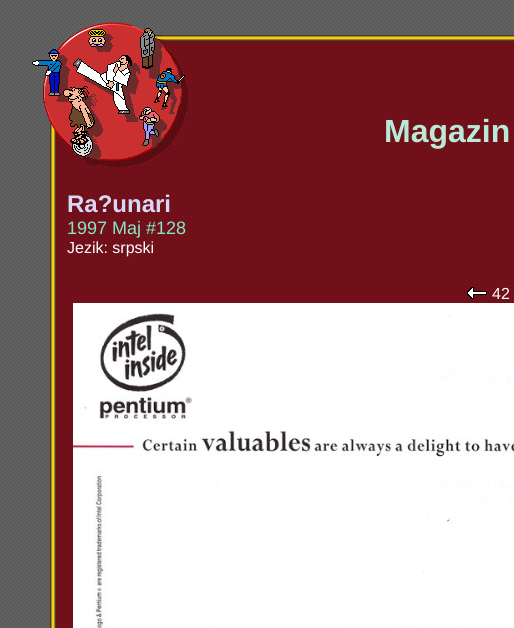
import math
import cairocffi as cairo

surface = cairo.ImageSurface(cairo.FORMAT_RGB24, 514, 628)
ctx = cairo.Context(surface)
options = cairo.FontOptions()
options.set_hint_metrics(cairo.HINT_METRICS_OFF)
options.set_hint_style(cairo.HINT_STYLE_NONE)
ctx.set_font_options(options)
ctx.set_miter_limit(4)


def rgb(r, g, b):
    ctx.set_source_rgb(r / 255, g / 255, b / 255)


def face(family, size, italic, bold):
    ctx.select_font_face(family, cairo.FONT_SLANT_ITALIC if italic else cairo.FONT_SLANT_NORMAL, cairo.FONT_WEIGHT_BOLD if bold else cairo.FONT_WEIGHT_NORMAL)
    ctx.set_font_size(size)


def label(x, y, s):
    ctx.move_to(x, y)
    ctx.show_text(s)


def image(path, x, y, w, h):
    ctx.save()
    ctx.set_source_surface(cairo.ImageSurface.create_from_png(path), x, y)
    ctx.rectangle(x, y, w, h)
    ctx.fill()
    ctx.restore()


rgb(97, 97, 97)
ctx.paint()
image('image0.png', 0, 0, 513, 627)
image('image1.png', 73, 22, 82, 13)
image('image2.png', 32, 52, 18, 70)
image('image3.png', 56, 41, 458, 587)
image('image4.png', 50, 35, 12, 12)
image('image5.png', 166, 35, 348, 6)
image('image6.png', 62, 35, 104, 12)
image('image7.png', 50, 139, 6, 489)
image('image8.png', 50, 47, 12, 92)
image('image9.png', 62, 47, 126, 120)
face('Liberation Sans', 32, 0, 1)
rgb(185, 234, 215)
label(384, 142, 'Magazin')
face('Liberation Sans', 24, 0, 1)
rgb(217, 215, 247)
label(67, 212, 'Ra?unari')
face('Liberation Sans', 18, 0, 0)
rgb(137, 231, 199)
label(67, 234, '1997 Maj #128')
face('Liberation Sans', 16, 0, 0)
rgb(255, 255, 255)
label(67, 253, 'Jezik: srpski')
image('image10.png', 467, 287, 20, 12)
label(492, 299, '42')
image('image11.png', 73, 303, 441, 325)
surface.write_to_png('render.png')
